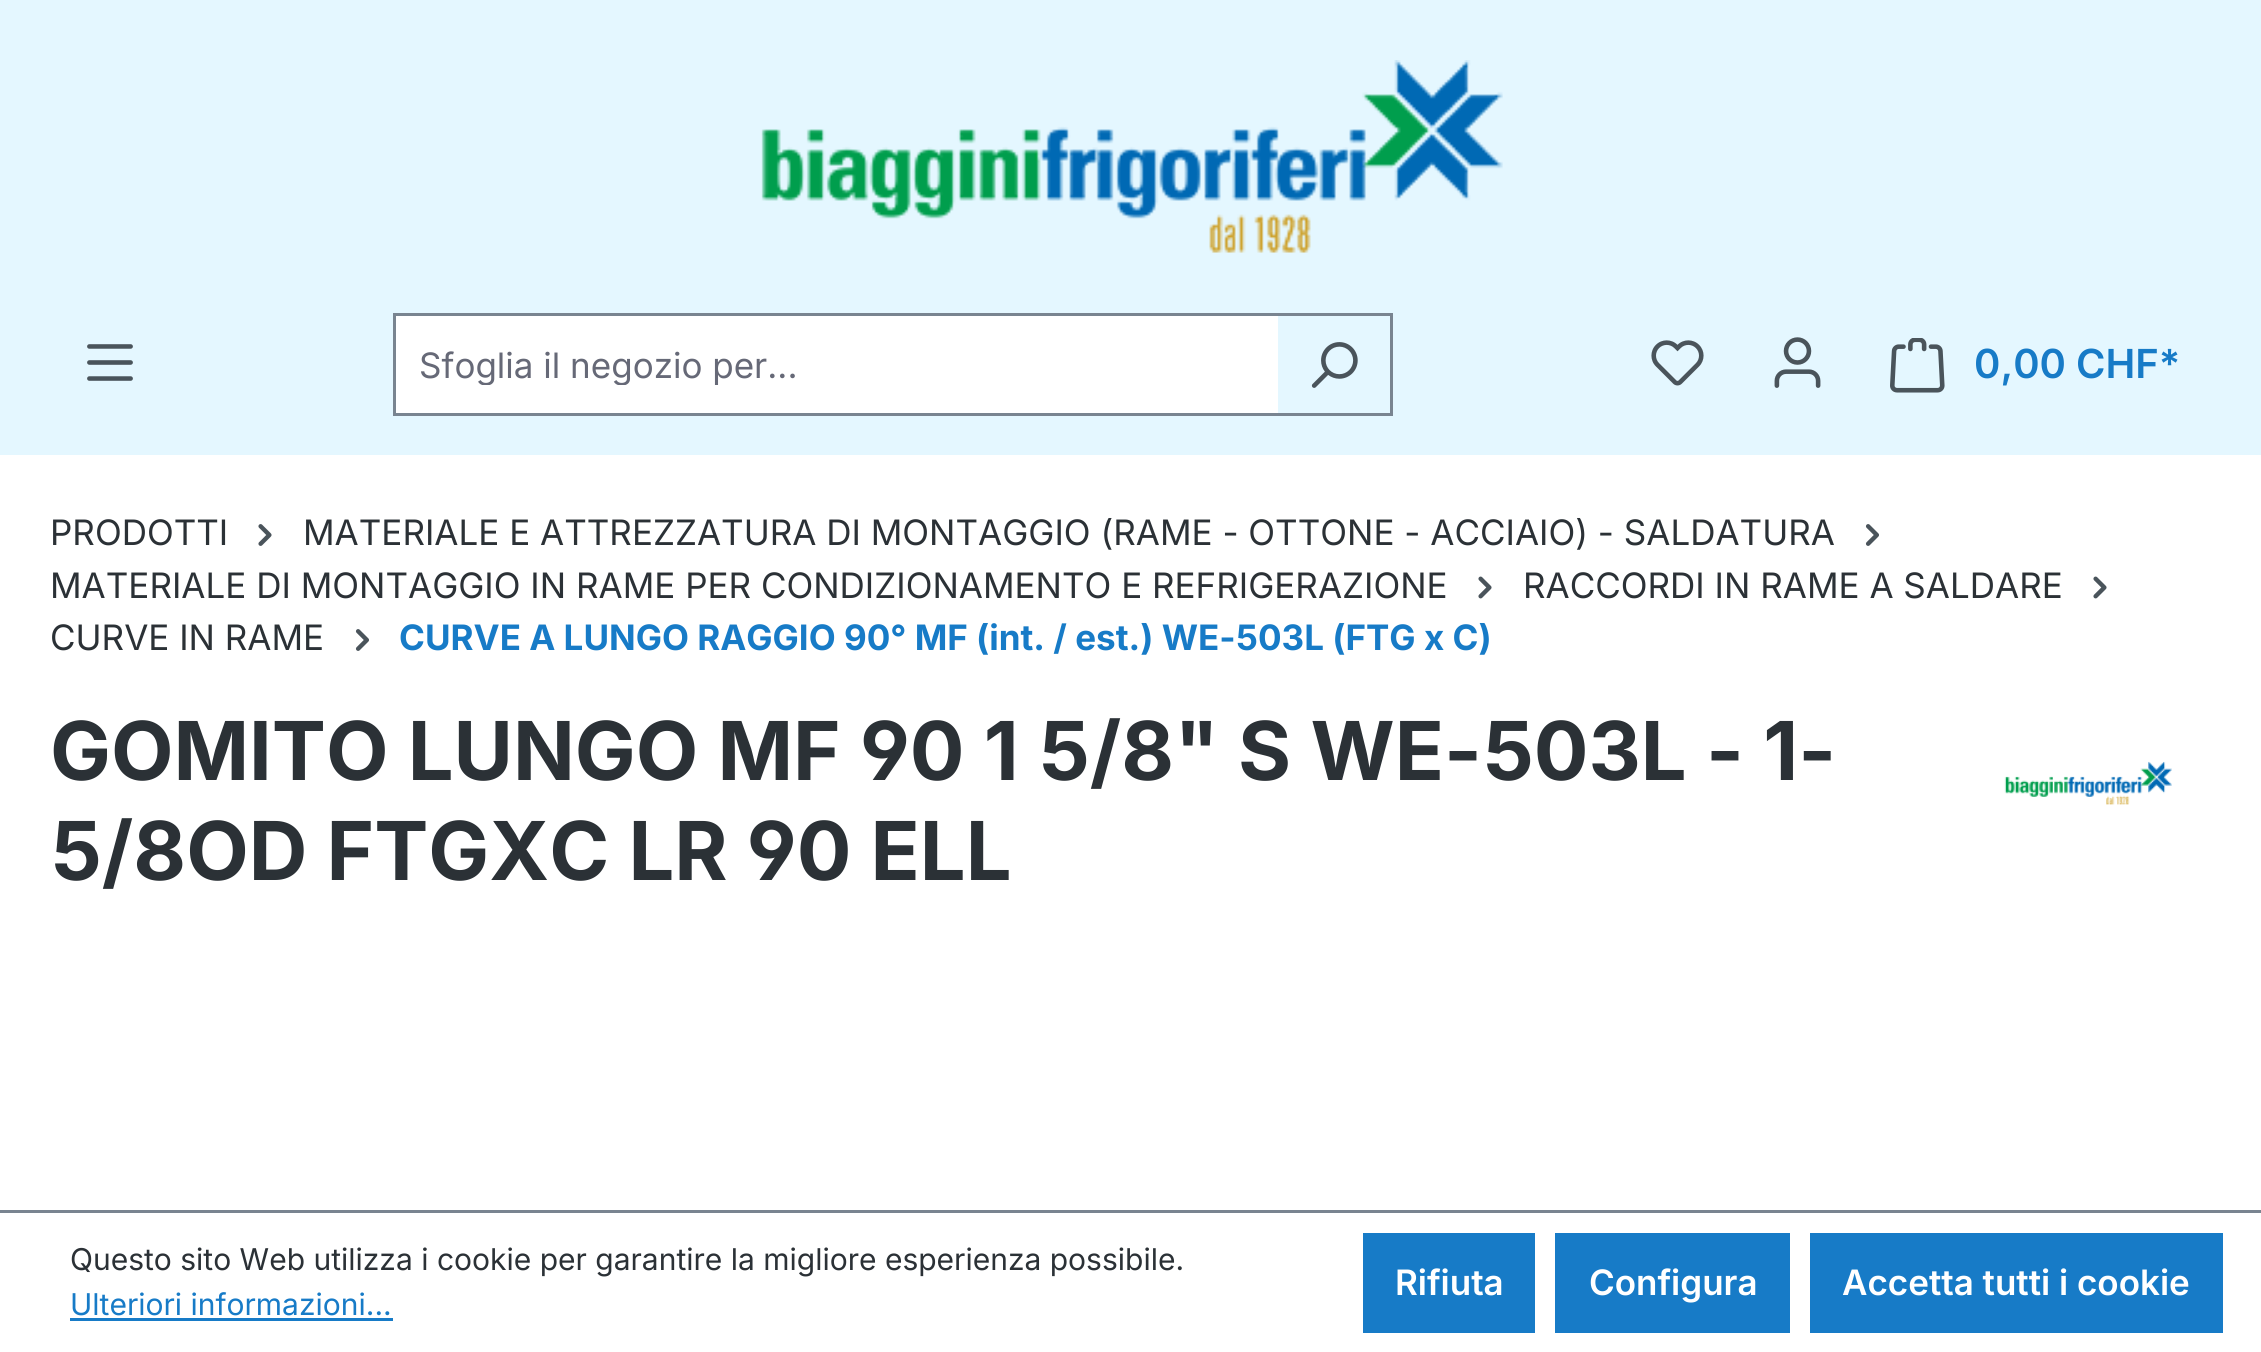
import math
import cairocffi as cairo

surface = cairo.ImageSurface(cairo.FORMAT_RGB24, 2261, 1352)
ctx = cairo.Context(surface)
options = cairo.FontOptions()
options.set_hint_metrics(cairo.HINT_METRICS_OFF)
options.set_hint_style(cairo.HINT_STYLE_NONE)
ctx.set_font_options(options)
ctx.set_miter_limit(4)


def rgb(r, g, b):
    ctx.set_source_rgb(r / 255, g / 255, b / 255)


def face(family, size, italic, bold):
    ctx.select_font_face(family, cairo.FONT_SLANT_ITALIC if italic else cairo.FONT_SLANT_NORMAL, cairo.FONT_WEIGHT_BOLD if bold else cairo.FONT_WEIGHT_NORMAL)
    ctx.set_font_size(size)


def label(x, y, s):
    ctx.move_to(x, y)
    ctx.show_text(s)


def rect(x, y, w, h):
    ctx.rectangle(x, y, w, h)
    ctx.fill()


def image(path, x, y, w, h):
    ctx.save()
    ctx.set_source_surface(cairo.ImageSurface.create_from_png(path), x, y)
    ctx.rectangle(x, y, w, h)
    ctx.fill()
    ctx.restore()


rgb(255, 255, 255)
ctx.paint()
rgb(228, 247, 255)
rect(0, 0, 2261, 455)
image('image0.png', 761, 60, 742, 193)
image('image1.png', 87, 344, 46, 37)
rgb(255, 255, 255)
rect(396, 316, 882, 97)
rgb(121, 132, 144)
rect(393, 313, 1000, 3)
rect(393, 413, 885, 3)
rect(393, 313, 3, 102)
ctx.save()
ctx.rectangle(418, 343, 837, 42)
ctx.clip()
face('Inter', 35, 0, 0)
rgb(102, 105, 119)
label(419, 378, 'Sfoglia il negozio per...')
ctx.restore()
rect(1390, 313, 3, 102)
rect(1275, 413, 118, 3)
image('image2.png', 1311, 342, 47, 46)
image('image3.png', 1651, 340, 53, 46)
image('image4.png', 1774, 337, 47, 51)
image('image5.png', 1890, 338, 55, 55)
face('Inter SemiBold', 40, 0, 0)
rgb(23, 123, 199)
label(1974, 378, '0,00 CHF*')
face('Inter', 35, 0, 0)
rgb(43, 49, 54)
label(50, 545, 'PRODOTTI')
image('image6.png', 258, 524, 14, 22)
label(303, 545, 'MATERIALE E ATTREZZATURA DI MONTAGGIO (RAME - OTTONE - ACCIAIO) - SALDATURA')
image('image7.png', 1865, 524, 14, 22)
label(50, 598, 'MATERIALE DI MONTAGGIO IN RAME PER CONDIZIONAMENTO E REFRIGERAZIONE')
image('image8.png', 1478, 576, 14, 23)
label(1523, 598, 'RACCORDI IN RAME A SALDARE')
image('image8.png', 2093, 576, 14, 23)
label(50, 650, 'CURVE IN RAME')
image('image7.png', 355, 629, 14, 22)
face('Inter', 35, 0, 1)
rgb(23, 123, 199)
label(399, 650, 'CURVE A LUNGO RAGGIO 90° MF (int. / est.) WE-503L (FTG x C)')
face('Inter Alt', 81.15, 0, 1)
rgb(43, 49, 54)
label(50, 780, 'GOMITO LUNGO MF 90 1 5/8" S WE-503L - 1-')
label(50, 880, '5/8OD FTGXC LR 90 ELL')
image('image9.png', 2004, 761, 168, 44)
rgb(121, 132, 144)
rect(0, 1210, 2261, 3)
face('Inter', 30, 0, 0)
rgb(43, 49, 54)
label(70, 1270, 'Questo sito Web utilizza i cookie per garantire la migliore esperienza possibile.')
rgb(23, 123, 199)
label(70, 1315, 'Ulteriori informazioni...')
rect(70, 1318, 323, 3)
rect(1363, 1233, 172, 100)
face('Inter SemiBold', 35, 0, 0)
rgb(255, 255, 255)
label(1395, 1295, 'Rifiuta')
rgb(23, 123, 199)
rect(1555, 1233, 235, 100)
rgb(255, 255, 255)
label(1589, 1295, 'Configura')
rgb(23, 123, 199)
rect(1810, 1233, 413, 100)
rgb(255, 255, 255)
label(1842, 1295, 'Accetta tutti i cookie')
surface.write_to_png('render.png')
